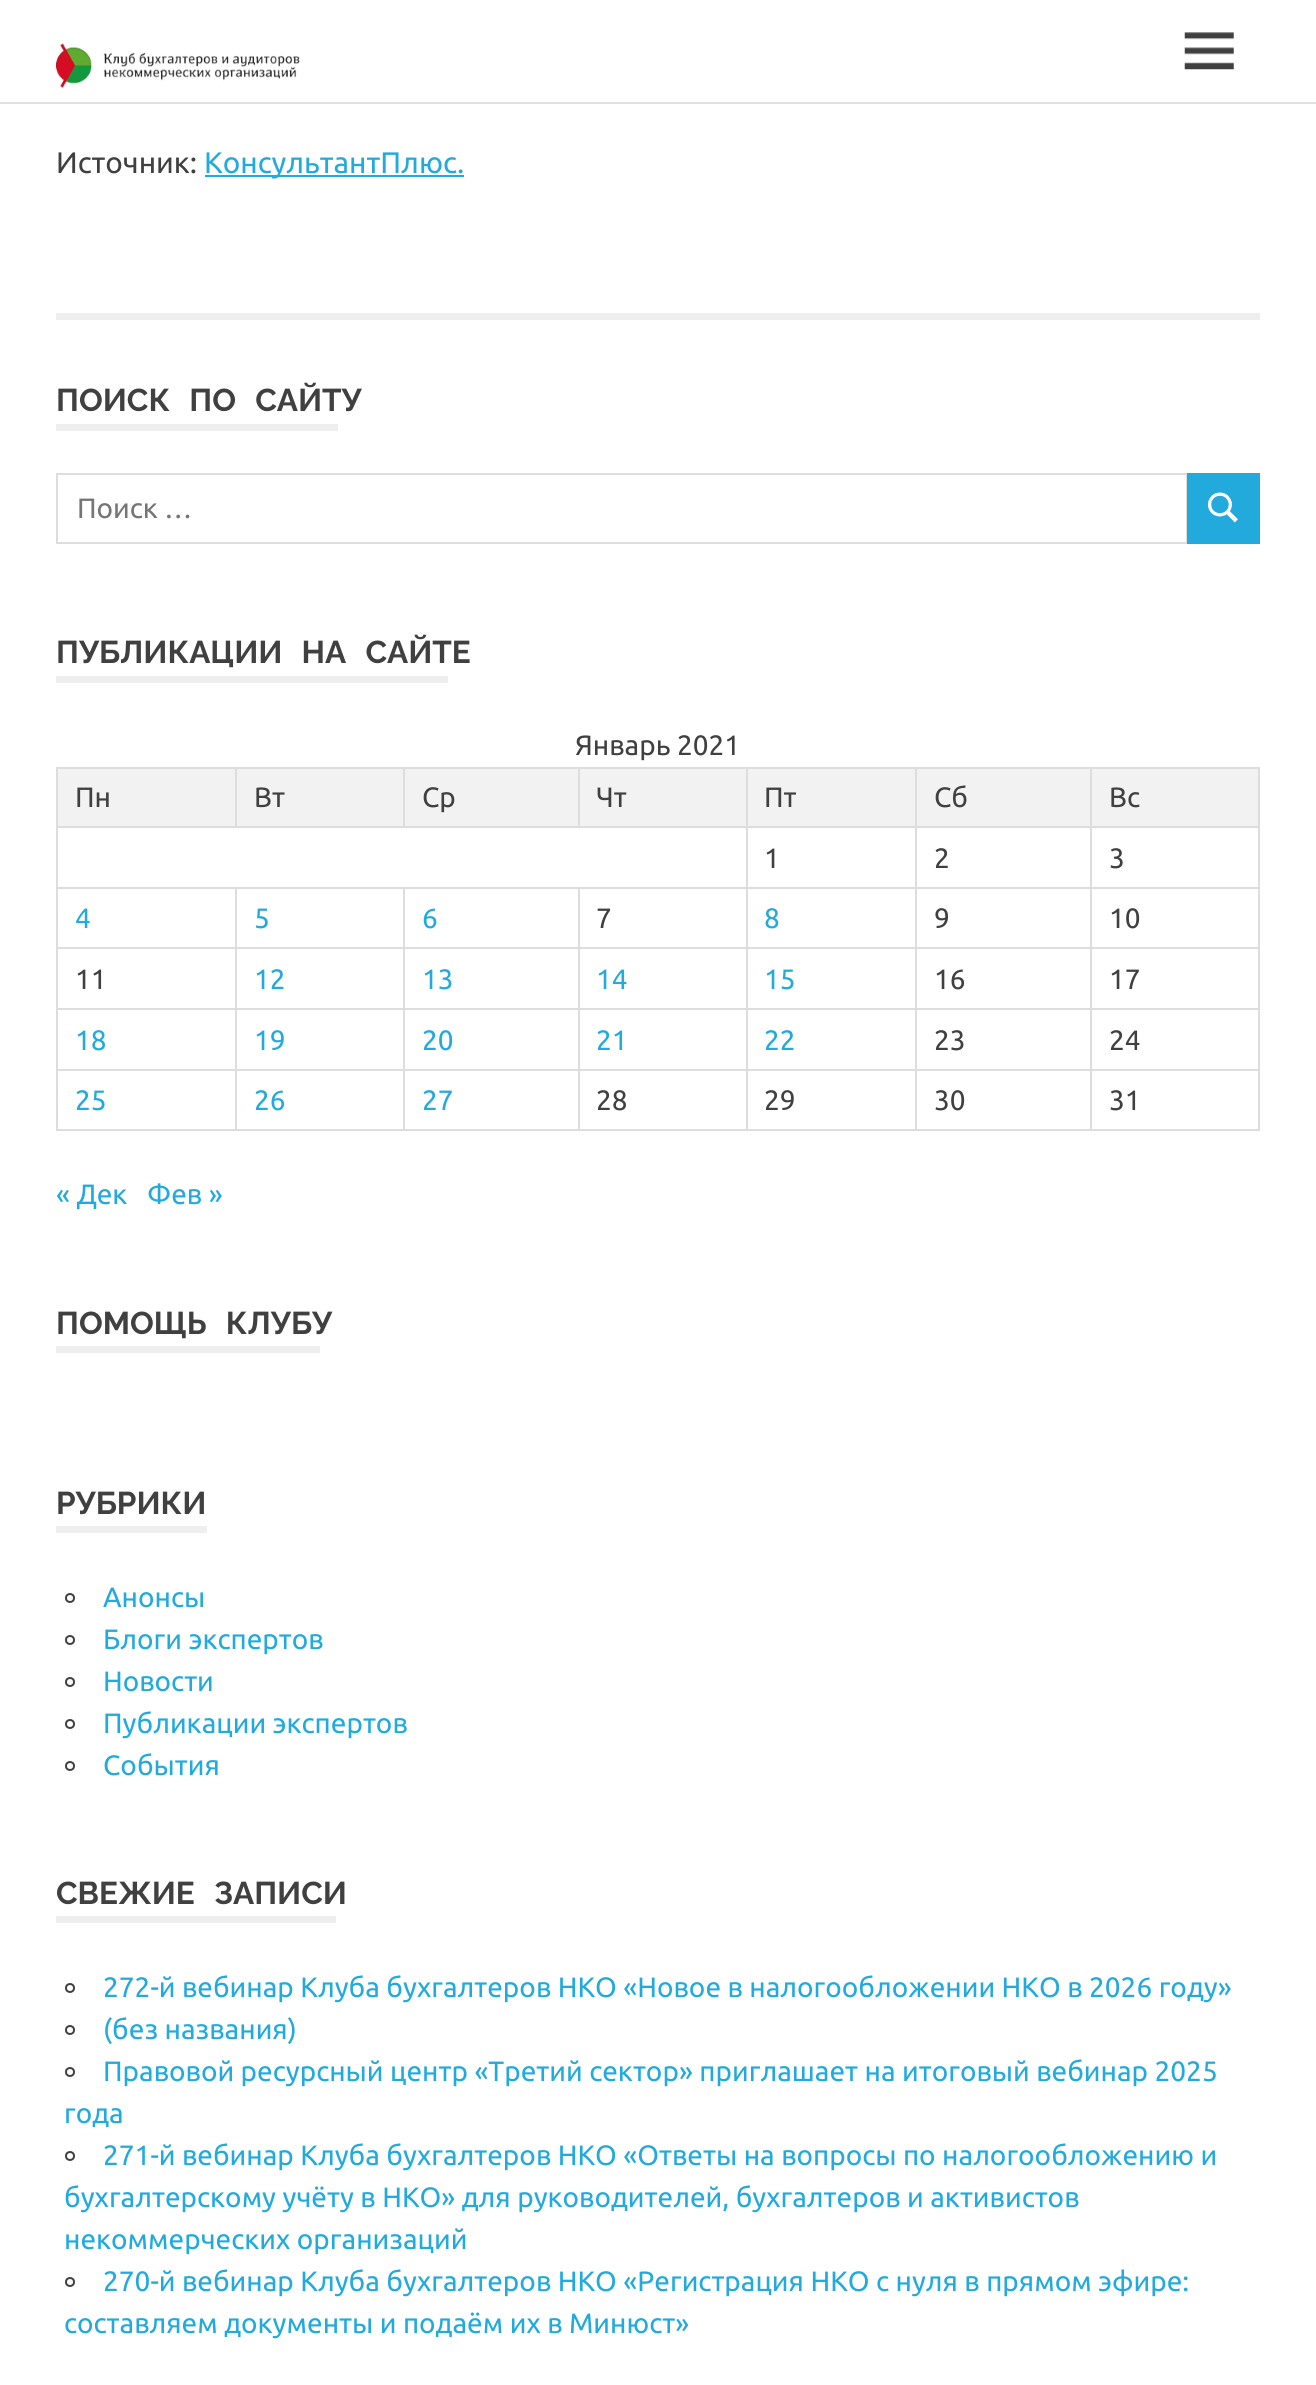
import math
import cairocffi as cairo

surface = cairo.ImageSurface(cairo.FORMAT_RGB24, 1316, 2385)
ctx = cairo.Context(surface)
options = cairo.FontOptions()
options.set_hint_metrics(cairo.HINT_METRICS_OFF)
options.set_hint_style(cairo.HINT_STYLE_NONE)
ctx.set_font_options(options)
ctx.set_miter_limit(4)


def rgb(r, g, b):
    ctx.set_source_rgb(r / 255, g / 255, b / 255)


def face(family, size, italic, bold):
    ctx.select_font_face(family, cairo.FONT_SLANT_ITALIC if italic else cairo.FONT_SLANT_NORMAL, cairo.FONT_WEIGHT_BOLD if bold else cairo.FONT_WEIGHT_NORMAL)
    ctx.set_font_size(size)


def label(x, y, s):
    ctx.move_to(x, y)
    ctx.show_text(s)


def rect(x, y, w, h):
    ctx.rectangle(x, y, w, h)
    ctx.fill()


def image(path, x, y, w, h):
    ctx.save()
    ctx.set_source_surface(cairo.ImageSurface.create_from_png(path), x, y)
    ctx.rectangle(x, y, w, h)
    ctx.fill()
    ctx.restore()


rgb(255, 255, 255)
ctx.paint()
rgb(224, 224, 224)
rect(0, 102, 1316, 2)
image('image0.png', 56, 43, 244, 45)
image('image1.png', 1184, 32, 50, 38)
face('Ubuntu', 29.75, 0, 0)
rgb(64, 64, 64)
label(56, 173, 'Источник:')
rgb(34, 170, 221)
rect(205, 175, 259, 2)
label(204, 173, 'КонсультантПлюс.')
rgb(238, 238, 238)
rect(56, 313, 1204, 7)
rect(56, 424, 282, 7)
face('Raleway Thin', 31.5, 0, 0)
rgb(64, 64, 64)
label(56, 411, 'ПОИСК ПО САЙТУ')
ctx.rectangle(57, 474, 1130, 69)
rgb(221, 221, 221)
ctx.stroke()
face('Ubuntu', 28, 0, 0)
rgb(117, 117, 117)
label(77, 518, 'Поиск …')
rgb(34, 170, 221)
rect(1187, 473, 73, 71)
image('image2.png', 1207, 492, 31, 31)
rgb(238, 238, 238)
rect(56, 676, 392, 7)
face('Raleway Thin', 31.5, 0, 0)
rgb(64, 64, 64)
label(56, 663, 'ПУБЛИКАЦИИ НА САЙТЕ')
face('Ubuntu', 28, 0, 0)
label(575, 755, 'Январь 2021')
rgb(242, 242, 242)
rect(58, 769, 177, 57)
rgb(221, 221, 221)
rect(1090, 767, 170, 2)
rect(1090, 826, 170, 2)
rect(1090, 887, 170, 2)
rect(1090, 947, 170, 2)
rect(1090, 1008, 170, 2)
rect(1090, 1069, 170, 2)
rect(1258, 1069, 2, 62)
rect(1090, 1129, 170, 2)
rect(1090, 1069, 2, 62)
rect(915, 1069, 177, 2)
rect(1090, 1008, 2, 63)
rect(915, 1008, 177, 2)
rect(1090, 947, 2, 63)
rect(915, 947, 177, 2)
rect(1090, 887, 2, 62)
rect(915, 887, 177, 2)
rect(1090, 826, 2, 63)
rect(915, 826, 177, 2)
rect(1090, 767, 2, 61)
rect(915, 767, 177, 2)
rect(915, 1129, 177, 2)
rect(915, 1069, 2, 62)
rect(746, 1069, 171, 2)
rect(915, 1008, 2, 63)
rect(746, 1008, 171, 2)
rect(915, 947, 2, 63)
rect(746, 947, 171, 2)
rect(915, 887, 2, 62)
rect(746, 887, 171, 2)
rect(915, 826, 2, 63)
rect(746, 826, 171, 2)
rect(915, 767, 2, 61)
rect(746, 767, 171, 2)
rect(746, 1129, 171, 2)
rect(746, 1069, 2, 62)
rect(578, 1069, 169, 2)
rect(746, 1008, 2, 63)
rect(578, 1008, 169, 2)
rect(746, 947, 2, 63)
rect(578, 947, 169, 2)
rect(746, 887, 2, 62)
rect(578, 887, 169, 2)
rect(746, 826, 2, 63)
rect(56, 826, 691, 2)
rect(746, 767, 2, 61)
rect(578, 767, 169, 2)
rect(578, 767, 2, 61)
rect(403, 767, 176, 2)
rect(403, 767, 2, 61)
rect(235, 767, 169, 2)
rect(235, 767, 2, 61)
rect(56, 767, 180, 2)
rect(578, 1129, 169, 2)
rect(578, 1069, 2, 62)
rect(403, 1069, 176, 2)
rect(578, 1008, 2, 63)
rect(403, 1008, 176, 2)
rect(578, 947, 2, 63)
rect(403, 947, 176, 2)
rect(578, 887, 2, 62)
rect(403, 887, 176, 2)
rect(403, 1129, 176, 2)
rect(403, 1069, 2, 62)
rect(235, 1069, 169, 2)
rect(403, 1008, 2, 63)
rect(235, 1008, 169, 2)
rect(403, 947, 2, 63)
rect(235, 947, 169, 2)
rect(403, 887, 2, 62)
rect(235, 887, 169, 2)
rect(235, 1129, 169, 2)
rect(235, 1069, 2, 62)
rect(56, 1069, 180, 2)
rect(235, 1008, 2, 63)
rect(56, 1008, 180, 2)
rect(235, 947, 2, 63)
rect(56, 947, 180, 2)
rect(235, 887, 2, 62)
rect(56, 887, 180, 2)
rect(56, 1129, 180, 2)
rect(56, 1069, 2, 62)
rect(56, 1008, 2, 63)
rect(56, 947, 2, 63)
rect(56, 887, 2, 62)
rect(56, 826, 2, 63)
rect(56, 767, 2, 61)
rgb(64, 64, 64)
label(75, 807, 'Пн')
rgb(242, 242, 242)
rect(237, 769, 166, 57)
rgb(64, 64, 64)
label(254, 807, 'Вт')
rgb(242, 242, 242)
rect(405, 769, 173, 57)
rgb(64, 64, 64)
label(422, 807, 'Ср')
rgb(242, 242, 242)
rect(580, 769, 166, 57)
rgb(64, 64, 64)
label(596, 807, 'Чт')
rgb(242, 242, 242)
rect(748, 769, 167, 57)
rgb(64, 64, 64)
label(764, 807, 'Пт')
rgb(242, 242, 242)
rect(917, 769, 173, 57)
rgb(64, 64, 64)
label(934, 807, 'Сб')
rgb(242, 242, 242)
rect(1092, 769, 166, 57)
rgb(221, 221, 221)
rect(1258, 1008, 2, 63)
rect(1258, 947, 2, 63)
rect(1258, 887, 2, 62)
rect(1258, 826, 2, 63)
rect(1258, 767, 2, 61)
rgb(64, 64, 64)
label(1109, 807, 'Вс')
label(764, 868, '1')
label(934, 868, '2')
label(1109, 868, '3')
rgb(34, 170, 221)
label(75, 928, '4')
label(254, 928, '5')
label(422, 928, '6')
rgb(64, 64, 64)
label(596, 928, '7')
rgb(34, 170, 221)
label(764, 928, '8')
rgb(64, 64, 64)
label(934, 928, '9')
label(1109, 928, '10')
label(75, 989, '11')
rgb(34, 170, 221)
label(254, 989, '12')
label(422, 989, '13')
label(596, 989, '14')
label(764, 989, '15')
rgb(64, 64, 64)
label(934, 989, '16')
label(1109, 989, '17')
rgb(34, 170, 221)
label(75, 1050, '18')
label(254, 1050, '19')
label(422, 1050, '20')
label(596, 1050, '21')
label(764, 1050, '22')
rgb(64, 64, 64)
label(934, 1050, '23')
label(1109, 1050, '24')
rgb(34, 170, 221)
label(75, 1110, '25')
label(254, 1110, '26')
label(422, 1110, '27')
rgb(64, 64, 64)
label(596, 1110, '28')
label(764, 1110, '29')
label(934, 1110, '30')
label(1109, 1110, '31')
rgb(34, 170, 221)
label(56, 1204, '« Дек')
label(147, 1204, 'Фев »')
rgb(238, 238, 238)
rect(56, 1346, 264, 7)
face('Raleway Thin', 31.5, 0, 0)
rgb(64, 64, 64)
label(56, 1334, 'ПОМОЩЬ КЛУБУ')
rgb(238, 238, 238)
rect(56, 1526, 151, 7)
rgb(64, 64, 64)
label(56, 1514, 'РУБРИКИ')
ctx.new_path()
ctx.arc(70, 1598, 4, 0, 2 * math.pi)
ctx.stroke()
face('Ubuntu', 28, 0, 0)
rgb(34, 170, 221)
label(103, 1607, 'Анонсы')
ctx.new_path()
ctx.arc(70, 1640, 4, 0, 2 * math.pi)
rgb(64, 64, 64)
ctx.stroke()
rgb(34, 170, 221)
label(103, 1649, 'Блоги экспертов')
ctx.new_path()
ctx.arc(70, 1682, 4, 0, 2 * math.pi)
rgb(64, 64, 64)
ctx.stroke()
rgb(34, 170, 221)
label(103, 1691, 'Новости')
ctx.new_path()
ctx.arc(70, 1724, 4, 0, 2 * math.pi)
rgb(64, 64, 64)
ctx.stroke()
rgb(34, 170, 221)
label(103, 1733, 'Публикации экспертов')
ctx.new_path()
ctx.arc(70, 1766, 4, 0, 2 * math.pi)
rgb(64, 64, 64)
ctx.stroke()
rgb(34, 170, 221)
label(103, 1775, 'События')
rgb(238, 238, 238)
rect(56, 1916, 280, 7)
face('Raleway Thin', 31.5, 0, 0)
rgb(64, 64, 64)
label(56, 1904, 'СВЕЖИЕ ЗАПИСИ')
ctx.new_path()
ctx.arc(70, 1988, 4, 0, 2 * math.pi)
ctx.stroke()
face('Ubuntu', 28, 0, 0)
rgb(34, 170, 221)
label(103, 1997, '272-й вебинар Клуба бухгалтеров НКО «Новое в налогообложении НКО в 2026 году»')
ctx.new_path()
ctx.arc(70, 2030, 4, 0, 2 * math.pi)
rgb(64, 64, 64)
ctx.stroke()
rgb(34, 170, 221)
label(103, 2039, '(без названия)')
ctx.new_path()
ctx.arc(70, 2072, 4, 0, 2 * math.pi)
rgb(64, 64, 64)
ctx.stroke()
rgb(34, 170, 221)
label(103, 2081, 'Правовой ресурсный центр «Третий сектор» приглашает на итоговый вебинар 2025')
label(64, 2123, 'года')
ctx.new_path()
ctx.arc(70, 2156, 4, 0, 2 * math.pi)
rgb(64, 64, 64)
ctx.stroke()
rgb(34, 170, 221)
label(103, 2165, '271-й вебинар Клуба бухгалтеров НКО «Ответы на вопросы по налогообложению и')
label(64, 2207, 'бухгалтерскому учёту в НКО» для руководителей, бухгалтеров и активистов')
label(64, 2249, 'некоммерческих организаций')
ctx.new_path()
ctx.arc(70, 2282, 4, 0, 2 * math.pi)
rgb(64, 64, 64)
ctx.stroke()
rgb(34, 170, 221)
label(103, 2291, '270-й вебинар Клуба бухгалтеров НКО «Регистрация НКО с нуля в прямом эфире:')
label(64, 2333, 'составляем документы и подаём их в Минюст»')
surface.write_to_png('render.png')
